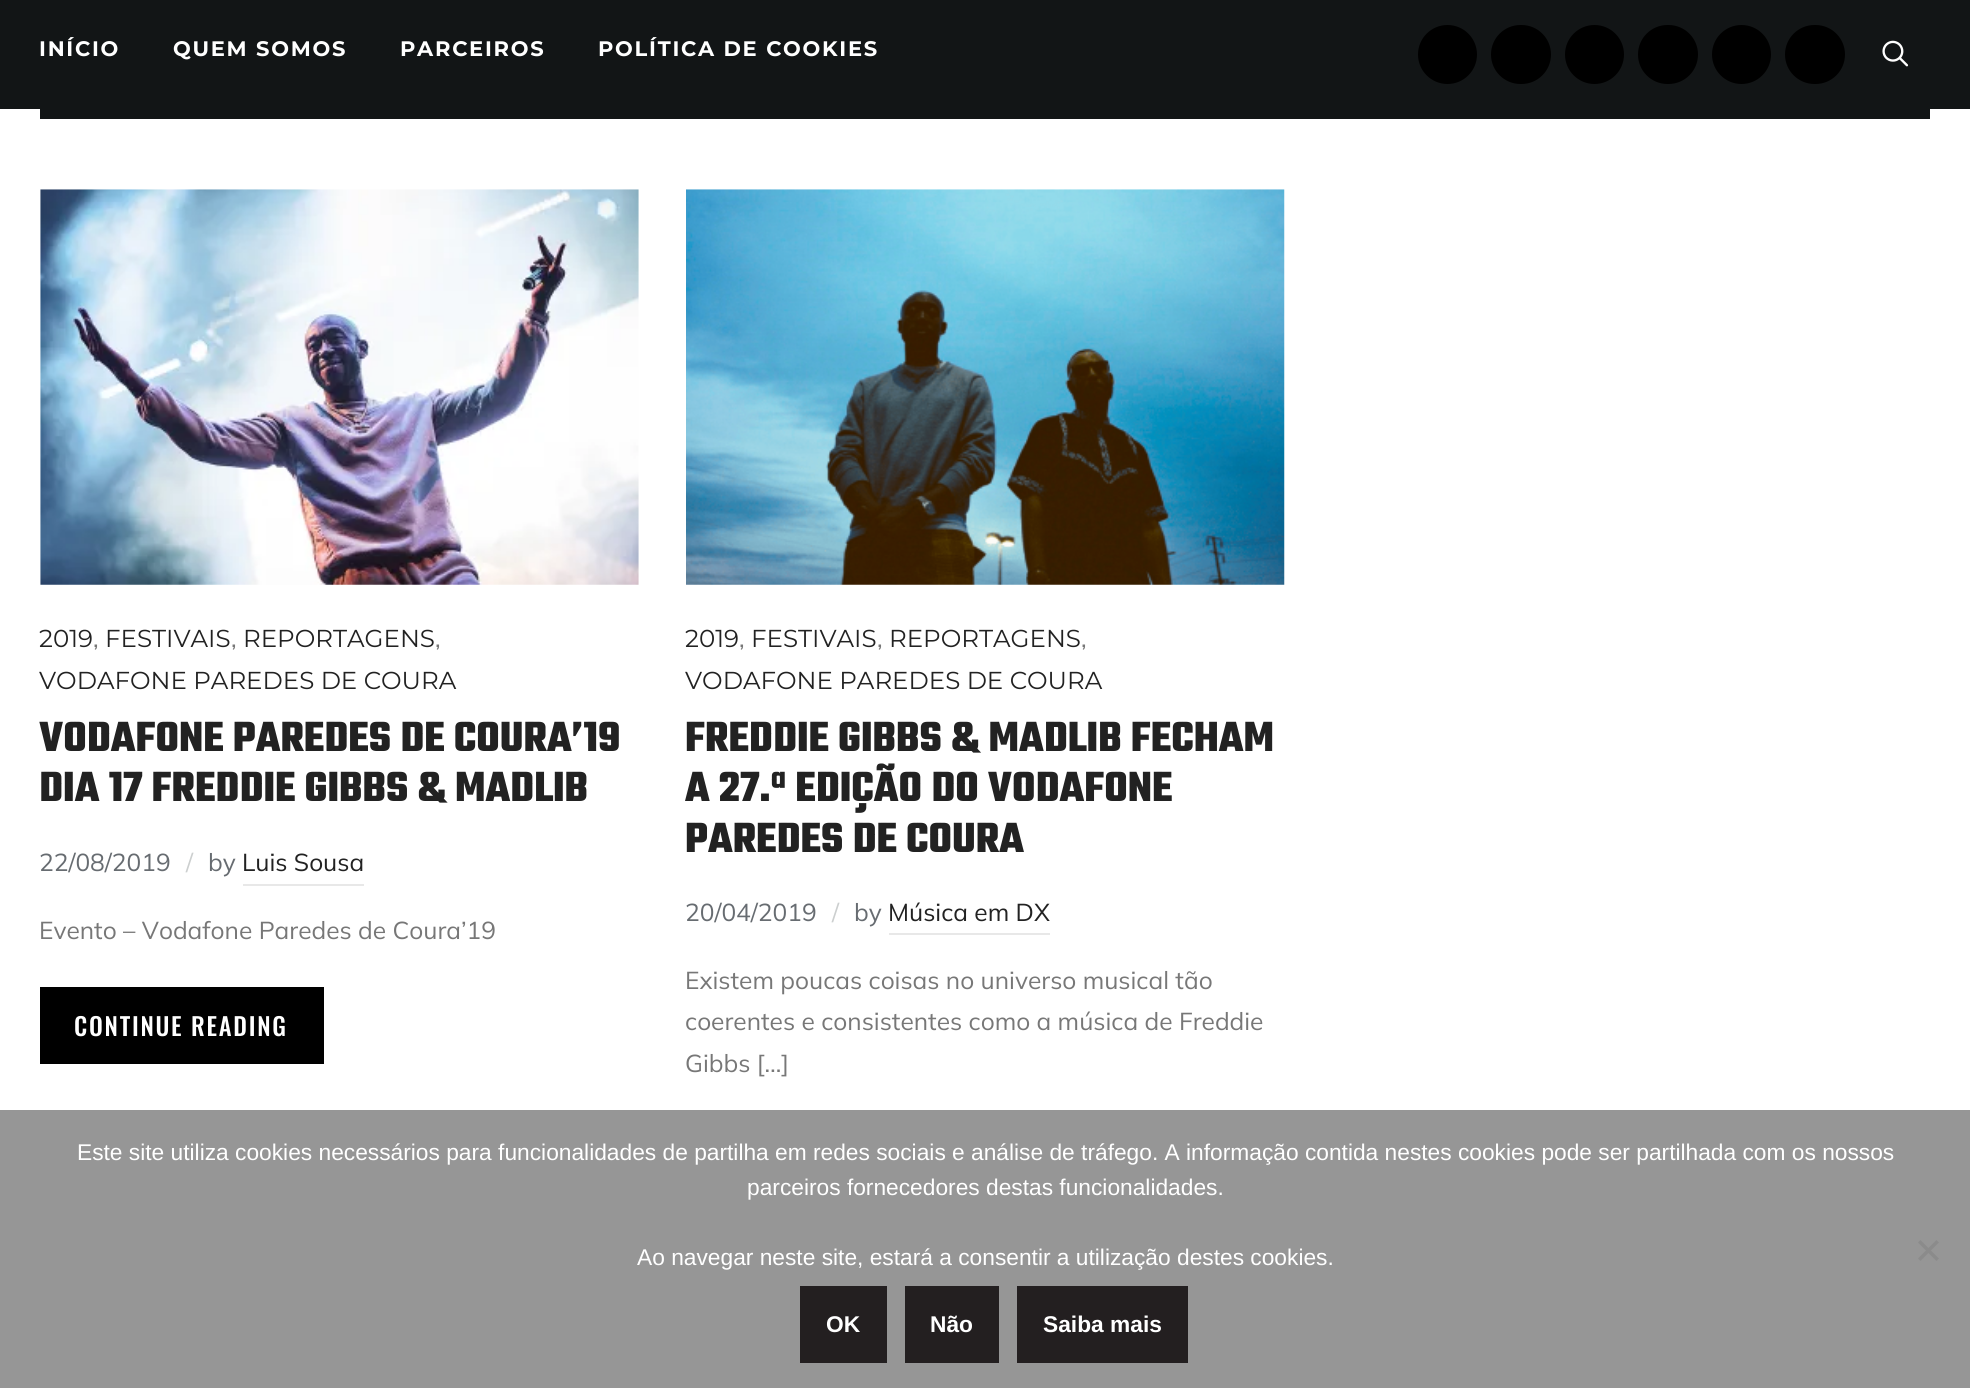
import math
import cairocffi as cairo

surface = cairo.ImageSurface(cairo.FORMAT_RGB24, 1970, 1388)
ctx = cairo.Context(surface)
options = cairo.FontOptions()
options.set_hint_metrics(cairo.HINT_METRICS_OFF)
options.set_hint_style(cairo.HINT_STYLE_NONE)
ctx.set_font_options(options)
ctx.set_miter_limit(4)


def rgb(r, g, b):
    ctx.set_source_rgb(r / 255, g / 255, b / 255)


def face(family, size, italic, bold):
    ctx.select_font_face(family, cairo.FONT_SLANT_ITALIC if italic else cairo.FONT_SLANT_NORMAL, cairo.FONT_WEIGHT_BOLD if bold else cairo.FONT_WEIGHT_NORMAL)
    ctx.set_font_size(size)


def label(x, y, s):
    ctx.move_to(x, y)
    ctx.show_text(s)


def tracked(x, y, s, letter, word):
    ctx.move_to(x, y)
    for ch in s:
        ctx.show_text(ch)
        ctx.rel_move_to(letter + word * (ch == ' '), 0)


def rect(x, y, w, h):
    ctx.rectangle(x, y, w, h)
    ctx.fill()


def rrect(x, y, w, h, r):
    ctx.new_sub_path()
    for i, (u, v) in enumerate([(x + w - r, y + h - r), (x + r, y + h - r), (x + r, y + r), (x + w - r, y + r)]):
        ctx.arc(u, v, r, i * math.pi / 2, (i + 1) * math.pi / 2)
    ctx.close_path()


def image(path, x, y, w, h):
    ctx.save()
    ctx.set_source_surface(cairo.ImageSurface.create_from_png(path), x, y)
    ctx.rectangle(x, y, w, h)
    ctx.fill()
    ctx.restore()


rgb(255, 255, 255)
ctx.paint()
rgb(18, 21, 22)
rect(0, 0, 1970, 109)
face('Montserrat', 21, 0, 1)
rgb(255, 255, 255)
tracked(39, 56, 'INÍCIO', 1.75, 0)
tracked(173, 56, 'QUEM SOMOS', 1.75, 0)
tracked(400, 56, 'PARCEIROS', 1.75, 0)
tracked(598, 56, 'POLÍTICA DE COOKIES', 1.75, 0)
rgb(0, 0, 0)
ctx.new_path()
ctx.arc(1447.5, 54.5, 29.5, 0, 2 * math.pi)
ctx.fill()
rrect(1491, 25, 60, 59, 29.5)
ctx.fill()
ctx.arc(1594.5, 54.5, 29.5, 0, 2 * math.pi)
ctx.fill()
rrect(1638, 25, 60, 59, 29.5)
ctx.fill()
ctx.arc(1741.5, 54.5, 29.5, 0, 2 * math.pi)
ctx.fill()
rrect(1785, 25, 60, 59, 29.5)
ctx.fill()
image('image0.png', 1882, 40, 27, 27)
rgb(18, 21, 22)
rect(40, 109, 1890, 10)
image('image1.png', 40, 189, 599, 396)
face('Montserrat', 24.5, 0, 0)
rgb(34, 34, 34)
label(39, 647, '2019')
face('Mulish', 24.5, 0, 0)
rgb(119, 119, 119)
label(93, 647, ',')
face('Montserrat', 24.5, 0, 0)
rgb(34, 34, 34)
label(105, 647, 'FESTIVAIS')
face('Mulish', 24.5, 0, 0)
rgb(119, 119, 119)
label(231, 647, ',')
face('Montserrat', 24.5, 0, 0)
rgb(34, 34, 34)
label(243, 647, 'REPORTAGENS')
face('Mulish', 24.5, 0, 0)
rgb(119, 119, 119)
label(435, 647, ',')
face('Montserrat', 24.5, 0, 0)
rgb(34, 34, 34)
label(39, 689, 'VODAFONE PAREDES DE COURA')
face('Teko', 45.5, 0, 1)
label(39, 751, 'VODAFONE PAREDES DE COURA’19')
label(39, 801, 'DIA 17 FREDDIE GIBBS & MADLIB')
face('Mulish', 24.5, 0, 0)
rgb(103, 108, 113)
label(39, 871, '22/08/2019')
rgb(204, 207, 207)
label(186, 871, '/')
rgb(103, 108, 113)
label(208, 871, 'by')
rgb(34, 34, 34)
label(242, 871, 'Luis Sousa')
rgb(232, 232, 232)
rect(243, 884, 121, 2)
rgb(119, 119, 119)
label(39, 939, 'Evento – Vodafone Paredes de Coura’19')
rgb(0, 0, 0)
rect(40, 987, 284, 77)
face('Oswald Medium', 24.5, 0, 0)
rgb(255, 255, 255)
tracked(74, 1036, 'CONTINUE READING', 1.75, 0)
image('image2.png', 686, 189, 599, 396)
face('Montserrat', 24.5, 0, 0)
rgb(34, 34, 34)
label(685, 647, '2019')
face('Mulish', 24.5, 0, 0)
rgb(119, 119, 119)
label(739, 647, ',')
face('Montserrat', 24.5, 0, 0)
rgb(34, 34, 34)
label(751, 647, 'FESTIVAIS')
face('Mulish', 24.5, 0, 0)
rgb(119, 119, 119)
label(877, 647, ',')
face('Montserrat', 24.5, 0, 0)
rgb(34, 34, 34)
label(889, 647, 'REPORTAGENS')
face('Mulish', 24.5, 0, 0)
rgb(119, 119, 119)
label(1081, 647, ',')
face('Montserrat', 24.5, 0, 0)
rgb(34, 34, 34)
label(685, 689, 'VODAFONE PAREDES DE COURA')
face('Teko', 45.5, 0, 1)
label(685, 751, 'FREDDIE GIBBS & MADLIB FECHAM')
label(685, 801, 'A 27.ª EDIÇÃO DO VODAFONE')
label(685, 852, 'PAREDES DE COURA')
face('Mulish', 24.5, 0, 0)
rgb(103, 108, 113)
label(685, 921, '20/04/2019')
rgb(204, 207, 207)
label(832, 921, '/')
rgb(103, 108, 113)
label(854, 921, 'by')
rgb(34, 34, 34)
label(888, 921, 'Música em DX')
rgb(232, 232, 232)
rect(889, 933, 161, 2)
rgb(119, 119, 119)
label(685, 989, 'Existem poucas coisas no universo musical tão')
label(685, 1030, 'coerentes e consistentes como a música de Freddie')
label(685, 1072, 'Gibbs […]')
rgb(150, 150, 150)
rect(0, 1110, 1970, 278)
face('Liberation Sans', 22.75, 0, 0)
rgb(255, 255, 255)
label(77, 1160, 'Este site utiliza cookies necessários para funcionalidades de partilha em redes sociais e análise de tráfego. A informação contida nestes cookies pode ser partilhada com os nossos')
label(747, 1195, 'parceiros fornecedores destas funcionalidades.')
label(637, 1265, 'Ao navegar neste site, estará a consentir a utilização destes cookies.')
rgb(139, 139, 139)
ctx.new_path()
ctx.move_to(1936.5, 1240)
ctx.line_to(1939, 1242.5)
ctx.line_to(1920.5, 1261)
ctx.line_to(1918, 1258.5)
ctx.close_path()
ctx.fill()
ctx.new_path()
ctx.move_to(1918, 1242.5)
ctx.line_to(1920.5, 1240)
ctx.line_to(1939, 1258.5)
ctx.line_to(1936.5, 1261)
ctx.close_path()
ctx.fill()
rgb(35, 31, 32)
rect(800, 1286, 87, 77)
face('Liberation Sans', 22.75, 0, 1)
rgb(255, 255, 255)
label(826, 1332, 'OK')
rgb(35, 31, 32)
rect(905, 1286, 94, 77)
rgb(255, 255, 255)
label(930, 1332, 'Não')
rgb(35, 31, 32)
rect(1017, 1286, 171, 77)
rgb(255, 255, 255)
label(1043, 1332, 'Saiba mais')
surface.write_to_png('render.png')
